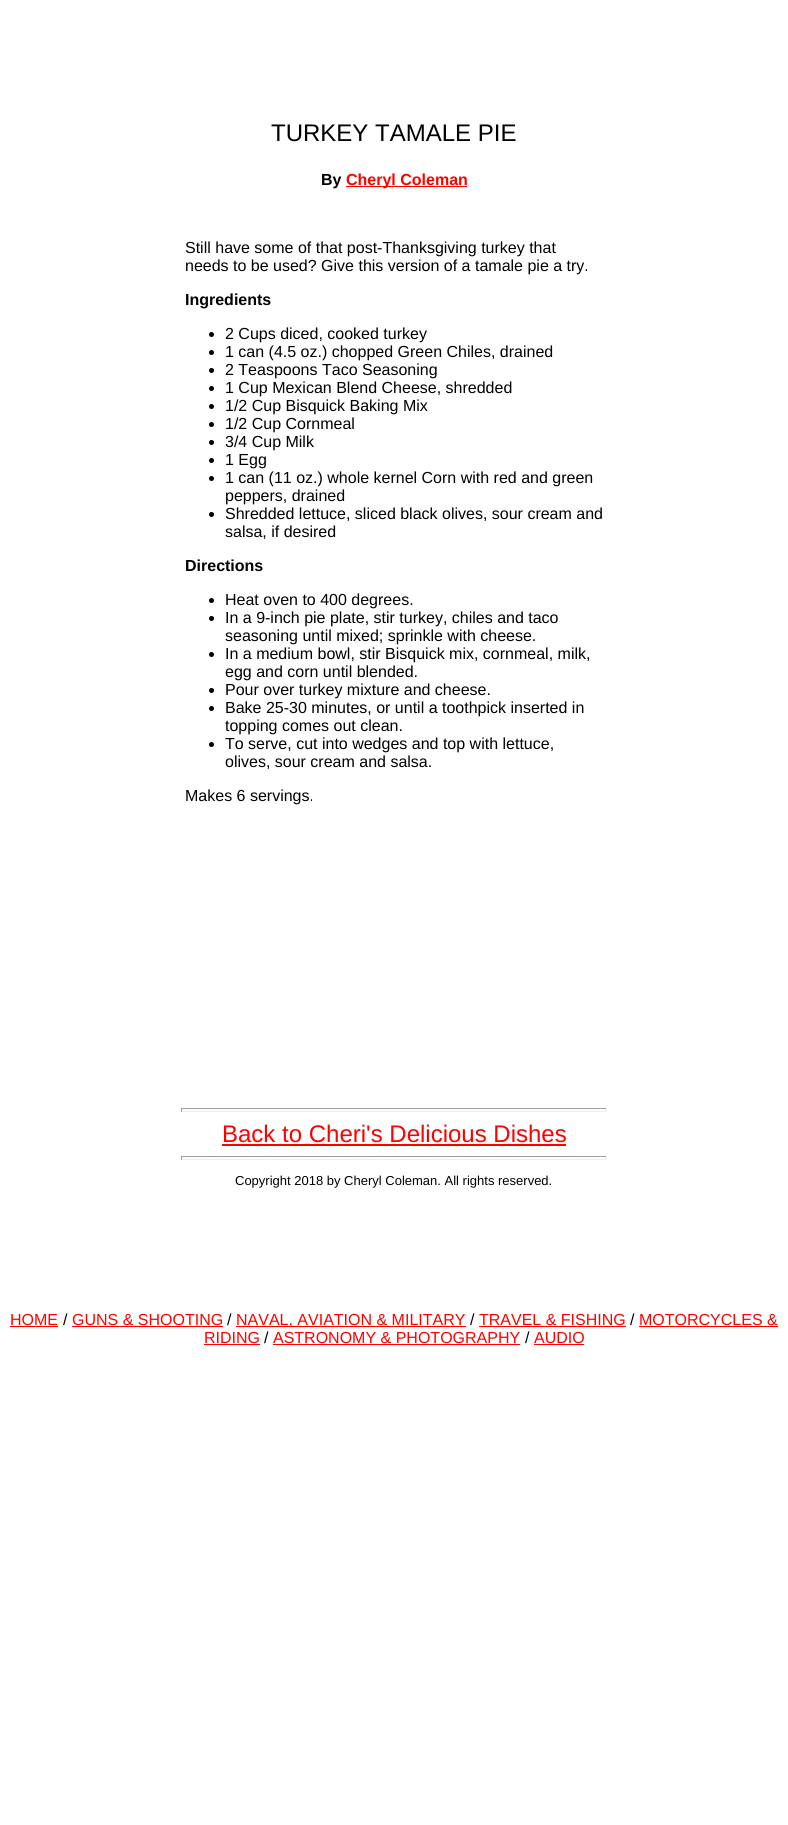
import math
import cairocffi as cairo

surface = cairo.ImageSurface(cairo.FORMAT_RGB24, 788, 1825)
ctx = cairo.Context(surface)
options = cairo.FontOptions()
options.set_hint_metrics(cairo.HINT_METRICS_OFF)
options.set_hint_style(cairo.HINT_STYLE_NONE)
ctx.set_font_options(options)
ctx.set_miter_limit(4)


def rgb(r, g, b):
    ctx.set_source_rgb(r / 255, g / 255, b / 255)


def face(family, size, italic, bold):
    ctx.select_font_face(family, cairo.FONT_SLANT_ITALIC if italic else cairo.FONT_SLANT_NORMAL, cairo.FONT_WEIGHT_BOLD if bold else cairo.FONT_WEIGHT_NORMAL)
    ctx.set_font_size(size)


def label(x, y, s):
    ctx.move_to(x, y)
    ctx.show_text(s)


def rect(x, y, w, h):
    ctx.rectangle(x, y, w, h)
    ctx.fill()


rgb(255, 255, 255)
ctx.paint()
face('Liberation Sans', 24, 0, 0)
rgb(0, 0, 0)
label(271, 141, 'TURKEY TAMALE PIE')
face('Liberation Sans', 16, 0, 1)
label(321, 185, 'By')
rgb(255, 0, 0)
rect(346, 186, 121, 1)
label(346, 185, 'Cheryl Coleman')
face('Liberation Sans', 16, 0, 0)
rgb(0, 0, 0)
label(185, 253, 'Still have some of that post-Thanksgiving turkey that')
label(185, 271, 'needs to be used? Give this version of a tamale pie a try.')
face('Liberation Sans', 16, 0, 1)
label(185, 305, 'Ingredients')
ctx.new_path()
ctx.arc(211.5, 334.5, 2.5, 0, 2 * math.pi)
ctx.fill()
face('Liberation Sans', 16, 0, 0)
label(225, 339, '2 Cups diced, cooked turkey')
ctx.new_path()
ctx.arc(211.5, 352.5, 2.5, 0, 2 * math.pi)
ctx.fill()
label(225, 357, '1 can (4.5 oz.) chopped Green Chiles, drained')
ctx.new_path()
ctx.arc(211.5, 370.5, 2.5, 0, 2 * math.pi)
ctx.fill()
label(225, 375, '2 Teaspoons Taco Seasoning')
ctx.new_path()
ctx.arc(211.5, 388.5, 2.5, 0, 2 * math.pi)
ctx.fill()
label(225, 393, '1 Cup Mexican Blend Cheese, shredded')
ctx.new_path()
ctx.arc(211.5, 406.5, 2.5, 0, 2 * math.pi)
ctx.fill()
label(225, 411, '1/2 Cup Bisquick Baking Mix')
ctx.new_path()
ctx.arc(211.5, 424.5, 2.5, 0, 2 * math.pi)
ctx.fill()
label(225, 429, '1/2 Cup Cornmeal')
ctx.new_path()
ctx.arc(211.5, 442.5, 2.5, 0, 2 * math.pi)
ctx.fill()
label(225, 447, '3/4 Cup Milk')
ctx.new_path()
ctx.arc(211.5, 460.5, 2.5, 0, 2 * math.pi)
ctx.fill()
label(225, 465, '1 Egg')
ctx.new_path()
ctx.arc(211.5, 478.5, 2.5, 0, 2 * math.pi)
ctx.fill()
label(225, 483, '1 can (11 oz.) whole kernel Corn with red and green')
label(225, 501, 'peppers, drained')
ctx.new_path()
ctx.arc(211.5, 514.5, 2.5, 0, 2 * math.pi)
ctx.fill()
label(225, 519, 'Shredded lettuce, sliced black olives, sour cream and')
label(225, 537, 'salsa, if desired')
face('Liberation Sans', 16, 0, 1)
label(185, 571, 'Directions')
ctx.new_path()
ctx.arc(211.5, 600.5, 2.5, 0, 2 * math.pi)
ctx.fill()
face('Liberation Sans', 16, 0, 0)
label(225, 605, 'Heat oven to 400 degrees.')
ctx.new_path()
ctx.arc(211.5, 618.5, 2.5, 0, 2 * math.pi)
ctx.fill()
label(225, 623, 'In a 9-inch pie plate, stir turkey, chiles and taco')
label(225, 641, 'seasoning until mixed; sprinkle with cheese.')
ctx.new_path()
ctx.arc(211.5, 654.5, 2.5, 0, 2 * math.pi)
ctx.fill()
label(225, 659, 'In a medium bowl, stir Bisquick mix, cornmeal, milk,')
label(225, 677, 'egg and corn until blended.')
ctx.new_path()
ctx.arc(211.5, 690.5, 2.5, 0, 2 * math.pi)
ctx.fill()
label(225, 695, 'Pour over turkey mixture and cheese.')
ctx.new_path()
ctx.arc(211.5, 708.5, 2.5, 0, 2 * math.pi)
ctx.fill()
label(225, 713, 'Bake 25-30 minutes, or until a toothpick inserted in')
label(225, 731, 'topping comes out clean.')
ctx.new_path()
ctx.arc(211.5, 744.5, 2.5, 0, 2 * math.pi)
ctx.fill()
label(225, 749, 'To serve, cut into wedges and top with lettuce,')
label(225, 767, 'olives, sour cream and salsa.')
label(185, 801, 'Makes 6 servings.')
rgb(159, 159, 159)
rect(181, 1108, 426, 1)
rgb(238, 238, 238)
rect(606, 1108, 1, 4)
rect(181, 1111, 426, 1)
rgb(159, 159, 159)
rect(181, 1108, 1, 4)
face('Liberation Sans', 24, 0, 0)
rgb(255, 0, 0)
label(222, 1142, 'Back to Cheri\'s Delicious Dishes')
rect(222, 1144, 344, 2)
rgb(159, 159, 159)
rect(181, 1156, 426, 1)
rgb(238, 238, 238)
rect(606, 1156, 1, 4)
rect(181, 1159, 426, 1)
rgb(159, 159, 159)
rect(181, 1156, 1, 4)
face('Liberation Sans', 13, 0, 0)
rgb(0, 0, 0)
label(235, 1185, 'Copyright 2018 by Cheryl Coleman. All rights reserved.')
face('Liberation Sans', 16, 0, 0)
rgb(255, 0, 0)
label(10, 1325, 'HOME')
rect(10, 1326, 48, 1)
rgb(0, 0, 0)
label(63, 1325, '/')
rgb(255, 0, 0)
label(72, 1325, 'GUNS & SHOOTING')
rect(72, 1326, 151, 1)
rgb(0, 0, 0)
label(227, 1325, '/')
rgb(255, 0, 0)
rect(236, 1326, 230, 1)
label(236, 1325, 'NAVAL, AVIATION & MILITARY')
rgb(0, 0, 0)
label(470, 1325, '/')
rgb(255, 0, 0)
label(479, 1325, 'TRAVEL & FISHING')
rect(479, 1326, 147, 1)
rgb(0, 0, 0)
label(630, 1325, '/')
rgb(255, 0, 0)
label(639, 1325, 'MOTORCYCLES &')
rect(639, 1326, 139, 1)
label(204, 1343, 'RIDING')
rect(204, 1344, 56, 1)
rgb(0, 0, 0)
label(264, 1343, '/')
rgb(255, 0, 0)
label(273, 1343, 'ASTRONOMY & PHOTOGRAPHY')
rect(273, 1344, 247, 1)
rgb(0, 0, 0)
label(525, 1343, '/')
rgb(255, 0, 0)
label(534, 1343, 'AUDIO')
rect(534, 1344, 50, 1)
surface.write_to_png('render.png')
